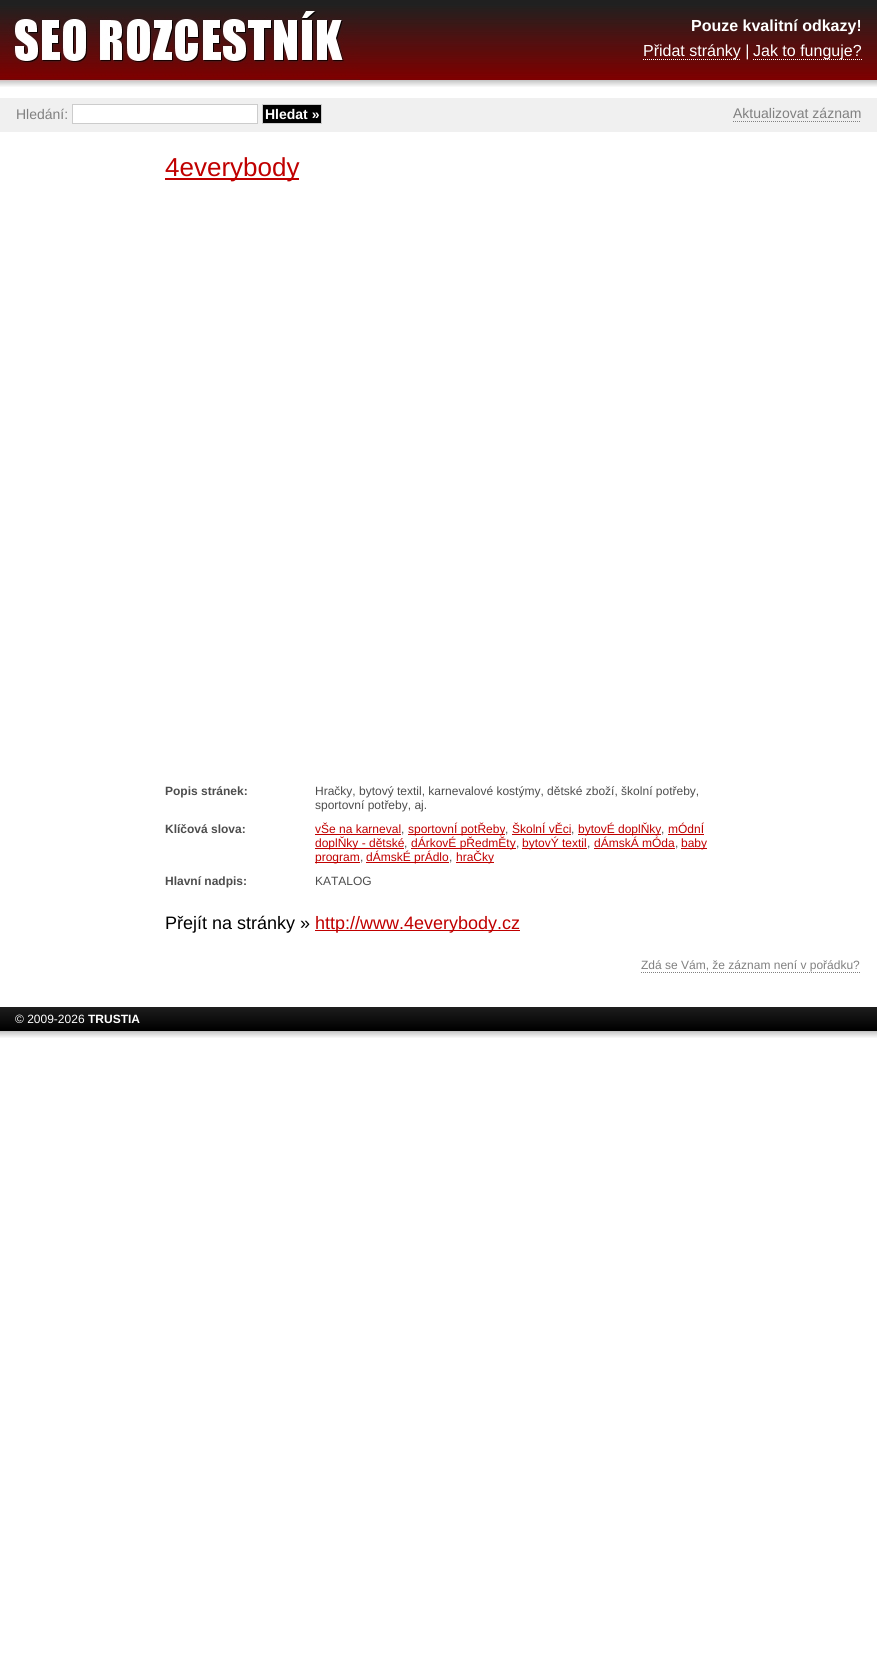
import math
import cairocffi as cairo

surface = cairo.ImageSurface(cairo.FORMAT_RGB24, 877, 1661)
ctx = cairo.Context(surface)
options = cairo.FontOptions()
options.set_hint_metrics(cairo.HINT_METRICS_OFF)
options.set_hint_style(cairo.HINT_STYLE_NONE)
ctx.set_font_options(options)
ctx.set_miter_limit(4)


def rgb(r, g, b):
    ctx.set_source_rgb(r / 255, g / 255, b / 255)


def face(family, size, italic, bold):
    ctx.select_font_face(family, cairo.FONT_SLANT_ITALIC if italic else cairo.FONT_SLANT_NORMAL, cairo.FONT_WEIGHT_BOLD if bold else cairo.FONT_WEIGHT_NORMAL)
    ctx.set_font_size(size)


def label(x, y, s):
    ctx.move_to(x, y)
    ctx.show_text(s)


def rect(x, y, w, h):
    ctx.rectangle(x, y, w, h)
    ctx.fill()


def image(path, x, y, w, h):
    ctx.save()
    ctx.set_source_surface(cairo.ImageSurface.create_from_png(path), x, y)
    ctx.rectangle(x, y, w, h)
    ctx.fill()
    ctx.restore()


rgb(255, 255, 255)
ctx.paint()
image('image0.png', 0, 0, 877, 87)
image('image1.png', 0, 11, 360, 70)
face('Liberation Sans', 16, 0, 1)
rgb(255, 255, 255)
label(691, 31, 'Pouze kvalitní odkazy!')
ctx.new_path()
ctx.move_to(643, 59.5)
ctx.line_to(740, 59.5)
ctx.set_line_width(1)
ctx.set_dash([1, 1])
ctx.stroke()
face('Liberation Sans', 16, 0, 0)
label(643, 56, 'Přidat stránky |')
ctx.new_path()
ctx.move_to(753, 59.5)
ctx.line_to(862, 59.5)
ctx.stroke()
label(753, 56, 'Jak to funguje?')
rgb(240, 240, 240)
rect(0, 98, 877, 34)
face('Liberation Sans', 14, 0, 0)
rgb(128, 128, 128)
label(16, 119, 'Hledání:')
rgb(255, 255, 255)
ctx.rectangle(72.5, 104.5, 185, 19)
ctx.fill_preserve()
rgb(204, 204, 204)
ctx.set_dash([])
ctx.stroke()
rgb(0, 0, 0)
ctx.rectangle(262.5, 104.5, 59, 19)
ctx.fill_preserve()
rgb(204, 204, 204)
ctx.stroke()
face('Liberation Sans', 14, 0, 1)
rgb(255, 255, 255)
label(265, 119, 'Hledat »')
ctx.new_path()
ctx.move_to(733, 121.5)
ctx.line_to(861, 121.5)
rgb(128, 128, 128)
ctx.set_dash([1, 1])
ctx.stroke()
face('Liberation Sans', 14, 0, 0)
label(733, 118, 'Aktualizovat záznam')
rgb(192, 0, 0)
rect(165, 178, 134, 2)
face('Liberation Sans', 26, 0, 0)
label(165, 176, '4everybody')
face('Liberation Sans', 12, 0, 1)
rgb(77, 77, 77)
label(165, 795, 'Popis stránek:')
face('Liberation Sans', 12, 0, 0)
label(315, 795, 'Hračky, bytový textil, karnevalové kostýmy, dětské zboží, školní potřeby,')
label(315, 809, 'sportovní potřeby, aj.')
face('Liberation Sans', 12, 0, 1)
label(165, 833, 'Klíčová slova:')
face('Liberation Sans', 12, 0, 0)
rgb(192, 0, 0)
label(315, 833, 'vŠe na karneval')
rect(315, 834, 86, 1)
rgb(77, 77, 77)
label(401, 833, ',')
rgb(192, 0, 0)
rect(408, 834, 97, 1)
label(408, 833, 'sportovnÍ potŘeby')
rgb(77, 77, 77)
label(505, 833, ',')
rgb(192, 0, 0)
label(512, 833, 'ŠkolnÍ vĚci')
rect(512, 834, 59, 1)
rgb(77, 77, 77)
label(571, 833, ',')
rgb(192, 0, 0)
rect(578, 834, 83, 1)
label(578, 833, 'bytovÉ doplŇky')
rgb(77, 77, 77)
label(661, 833, ',')
rgb(192, 0, 0)
label(668, 833, 'mÓdnÍ')
rect(668, 834, 36, 1)
rect(315, 848, 89, 1)
label(315, 847, 'doplŇky - dětské')
rgb(77, 77, 77)
label(404, 847, ',')
rgb(192, 0, 0)
rect(411, 848, 105, 1)
label(411, 847, 'dÁrkovÉ pŘedmĚty')
rgb(77, 77, 77)
label(516, 847, ',')
rgb(192, 0, 0)
rect(522, 848, 65, 1)
label(522, 847, 'bytovÝ textil')
rgb(77, 77, 77)
label(587, 847, ',')
rgb(192, 0, 0)
label(594, 847, 'dÁmskÁ mÓda')
rect(594, 848, 81, 1)
rgb(77, 77, 77)
label(675, 847, ',')
rgb(192, 0, 0)
rect(681, 848, 26, 1)
label(681, 847, 'baby')
rect(315, 862, 45, 1)
label(315, 861, 'program')
rgb(77, 77, 77)
label(360, 861, ',')
rgb(192, 0, 0)
rect(366, 862, 83, 1)
label(366, 861, 'dÁmskÉ prÁdlo')
rgb(77, 77, 77)
label(449, 861, ',')
rgb(192, 0, 0)
rect(456, 862, 38, 1)
label(456, 861, 'hraČky')
face('Liberation Sans', 12, 0, 1)
rgb(77, 77, 77)
label(165, 885, 'Hlavní nadpis:')
face('Liberation Sans', 12, 0, 0)
label(315, 885, 'KATALOG')
face('Liberation Sans', 18, 0, 0)
rgb(0, 0, 0)
label(165, 929, 'Přejít na stránky »')
rgb(192, 0, 0)
rect(315, 930, 205, 1)
label(315, 929, 'http://www.4everybody.cz')
face('Liberation Sans', 12, 0, 0)
rgb(128, 128, 128)
label(641, 969, 'Zdá se Vám, že záznam není v pořádku?')
ctx.new_path()
ctx.move_to(641, 972.5)
ctx.line_to(860, 972.5)
ctx.stroke()
image('image2.png', 0, 1007, 877, 32)
rgb(255, 255, 255)
label(15, 1023, '© 2009-2026')
face('Liberation Sans', 12, 0, 1)
label(88, 1023, 'TRUSTIA')
surface.write_to_png('render.png')
